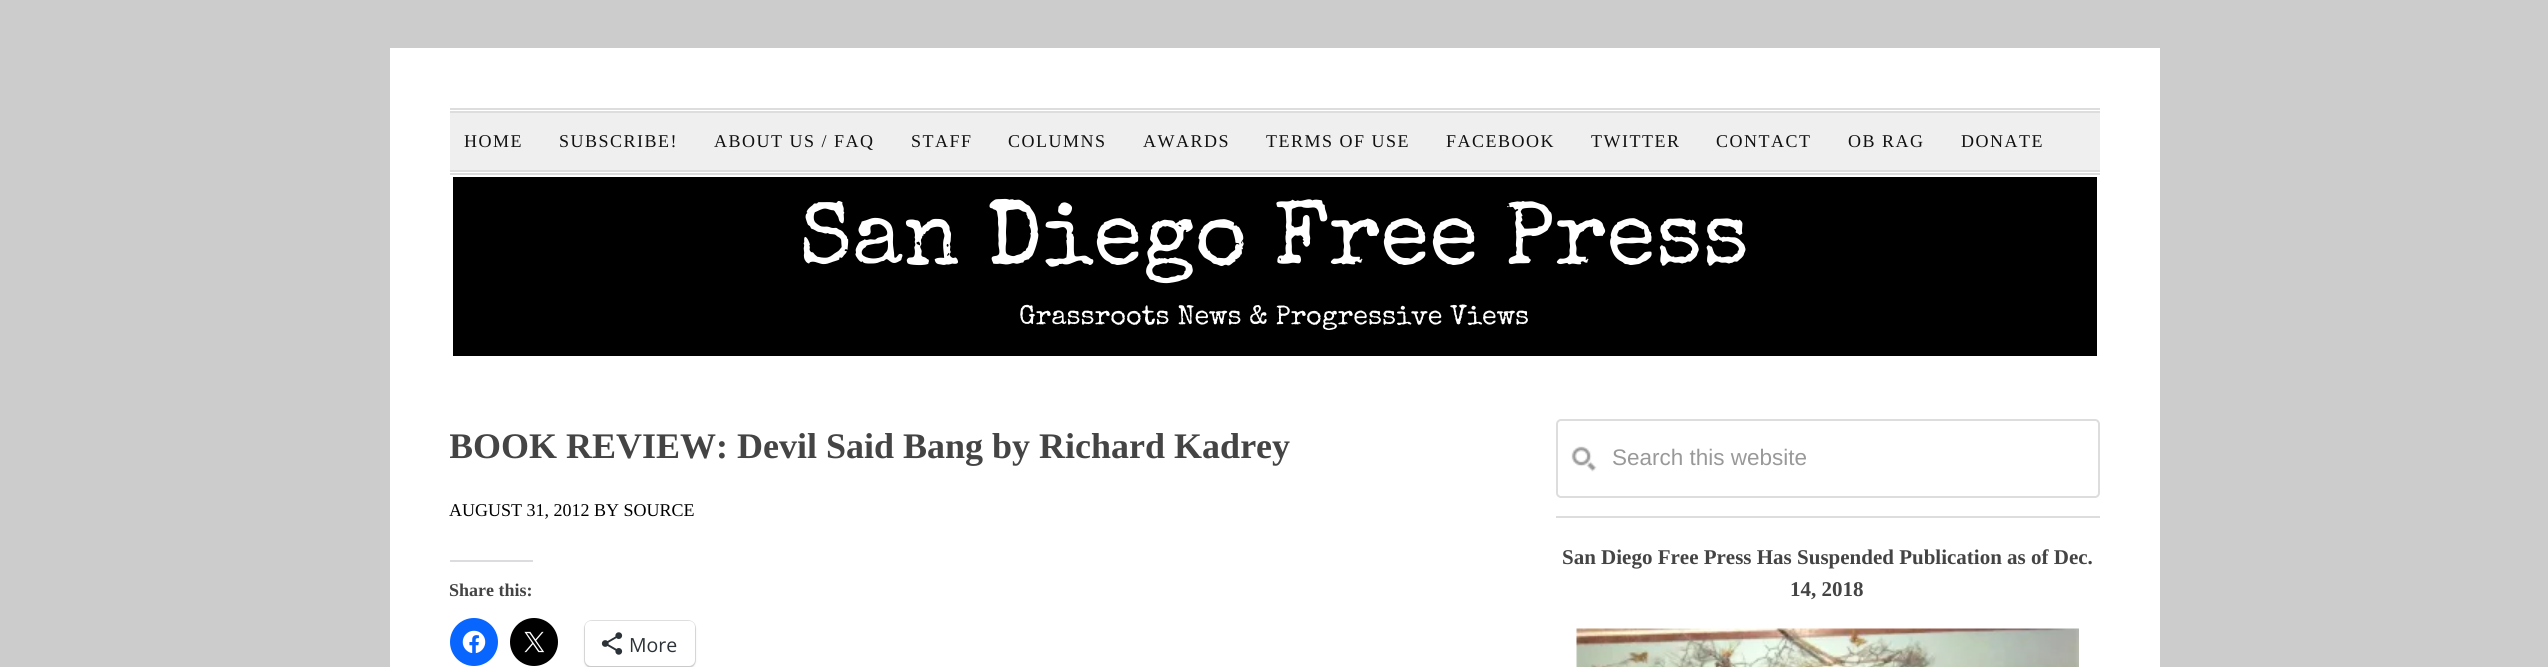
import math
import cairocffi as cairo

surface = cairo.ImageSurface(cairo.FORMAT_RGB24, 2548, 667)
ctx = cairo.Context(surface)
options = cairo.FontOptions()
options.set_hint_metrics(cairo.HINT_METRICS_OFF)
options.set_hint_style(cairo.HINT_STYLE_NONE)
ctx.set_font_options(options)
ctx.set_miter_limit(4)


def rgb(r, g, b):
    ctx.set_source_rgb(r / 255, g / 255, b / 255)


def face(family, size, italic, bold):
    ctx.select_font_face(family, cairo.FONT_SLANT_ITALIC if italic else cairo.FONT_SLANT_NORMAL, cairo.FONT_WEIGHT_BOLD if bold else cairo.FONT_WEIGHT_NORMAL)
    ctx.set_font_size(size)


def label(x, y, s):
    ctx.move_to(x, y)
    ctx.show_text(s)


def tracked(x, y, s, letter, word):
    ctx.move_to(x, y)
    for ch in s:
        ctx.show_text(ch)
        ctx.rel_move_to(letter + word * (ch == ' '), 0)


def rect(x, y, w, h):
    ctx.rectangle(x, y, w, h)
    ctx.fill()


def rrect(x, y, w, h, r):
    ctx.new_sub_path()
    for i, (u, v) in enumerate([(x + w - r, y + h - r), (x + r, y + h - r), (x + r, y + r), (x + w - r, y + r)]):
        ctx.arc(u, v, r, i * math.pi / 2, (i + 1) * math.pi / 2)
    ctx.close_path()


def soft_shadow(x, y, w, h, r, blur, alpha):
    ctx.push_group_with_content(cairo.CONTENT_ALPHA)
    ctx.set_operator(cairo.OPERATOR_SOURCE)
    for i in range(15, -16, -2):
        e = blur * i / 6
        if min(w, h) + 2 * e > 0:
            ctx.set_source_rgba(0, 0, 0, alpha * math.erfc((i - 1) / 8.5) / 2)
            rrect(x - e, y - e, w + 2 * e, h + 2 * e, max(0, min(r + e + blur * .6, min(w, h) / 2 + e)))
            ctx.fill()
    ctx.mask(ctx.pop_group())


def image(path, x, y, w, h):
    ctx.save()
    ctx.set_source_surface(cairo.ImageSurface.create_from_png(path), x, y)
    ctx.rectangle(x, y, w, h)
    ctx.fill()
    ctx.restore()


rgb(204, 204, 204)
ctx.paint()
rgb(255, 255, 255)
rect(390, 48, 1770, 619)
rgb(221, 221, 221)
rect(450, 108, 1650, 2)
rect(450, 111, 1650, 2)
rect(450, 170, 1650, 2)
rect(450, 173, 1650, 2)
rgb(239, 239, 239)
rect(450, 113, 1650, 57)
face('Liberation Serif', 18, 0, 0)
rgb(17, 17, 17)
tracked(464, 147, 'HOME', 1.5, 0)
tracked(559, 147, 'SUBSCRIBE!', 1.5, 0)
tracked(714, 147, 'ABOUT US / FAQ', 1.5, 0)
tracked(911, 147, 'STAFF', 1.5, 0)
tracked(1008, 147, 'COLUMNS', 1.5, 0)
tracked(1143, 147, 'AWARDS', 1.5, 0)
tracked(1266, 147, 'TERMS OF USE', 1.5, 0)
tracked(1446, 147, 'FACEBOOK', 1.5, 0)
tracked(1591, 147, 'TWITTER', 1.5, 0)
tracked(1716, 147, 'CONTACT', 1.5, 0)
tracked(1848, 147, 'OB RAG', 1.5, 0)
tracked(1961, 147, 'DONATE', 1.5, 0)
rgb(0, 0, 0)
rect(453, 177, 1644, 179)
face('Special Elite', 90, 0, 0)
rgb(255, 255, 255)
label(799, 263, 'San Diego Free Press')
face('Special Elite', 27, 0, 0)
label(1019, 324, 'Grassroots News & Progressive Views')
ctx.save()
ctx.rectangle(450, 359, 1650, 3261)
ctx.clip()
face('Liberation Serif', 36, 0, 1)
rgb(68, 68, 68)
label(449, 458, 'BOOK REVIEW: Devil Said Bang by Richard Kadrey')
ctx.restore()
face('Liberation Serif', 18, 0, 0)
rgb(0, 0, 0)
label(449, 516, 'AUGUST 31, 2012 BY SOURCE')
rgb(220, 220, 222)
rect(450, 560, 83, 2)
face('Liberation Serif', 18, 0, 1)
rgb(68, 68, 68)
label(449, 596, 'Share this:')
rgb(8, 102, 255)
ctx.new_path()
ctx.arc(474, 642, 24, 0, 2 * math.pi)
ctx.fill()
image('image0.png', 462, 630, 24, 23)
rgb(0, 0, 0)
ctx.arc(534, 642, 24, 0, 2 * math.pi)
ctx.fill()
image('image1.png', 524, 631, 21, 22)
rrect(585, 621, 110, 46, 7)
rgb(224, 224, 224)
ctx.stroke()
rgb(0, 0, 0)
soft_shadow(585, 623, 110, 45, 6, 1.5, 0.12)
rgb(255, 255, 255)
rrect(585, 621, 110, 45, 6)
ctx.fill()
image('image2.png', 601, 632, 22, 23)
face('Open Sans', 19.5, 0, 0)
rgb(44, 51, 56)
label(629, 652, 'More')
rgb(221, 221, 221)
rect(1556, 516, 544, 2)
image('image3.png', 1571, 446, 26, 26)
rrect(1557, 420, 542, 77, 4)
ctx.stroke()
face('Liberation Sans', 22.5, 0, 0)
rgb(153, 153, 153)
label(1612, 465, 'Search this website')
face('Liberation Serif', 21, 0, 1)
rgb(68, 68, 68)
label(1562, 564, 'San Diego Free Press Has Suspended Publication as of Dec.')
label(1790, 596, '14, 2018')
image('image4.png', 1576, 628, 503, 39)
surface.write_to_png('render.png')
